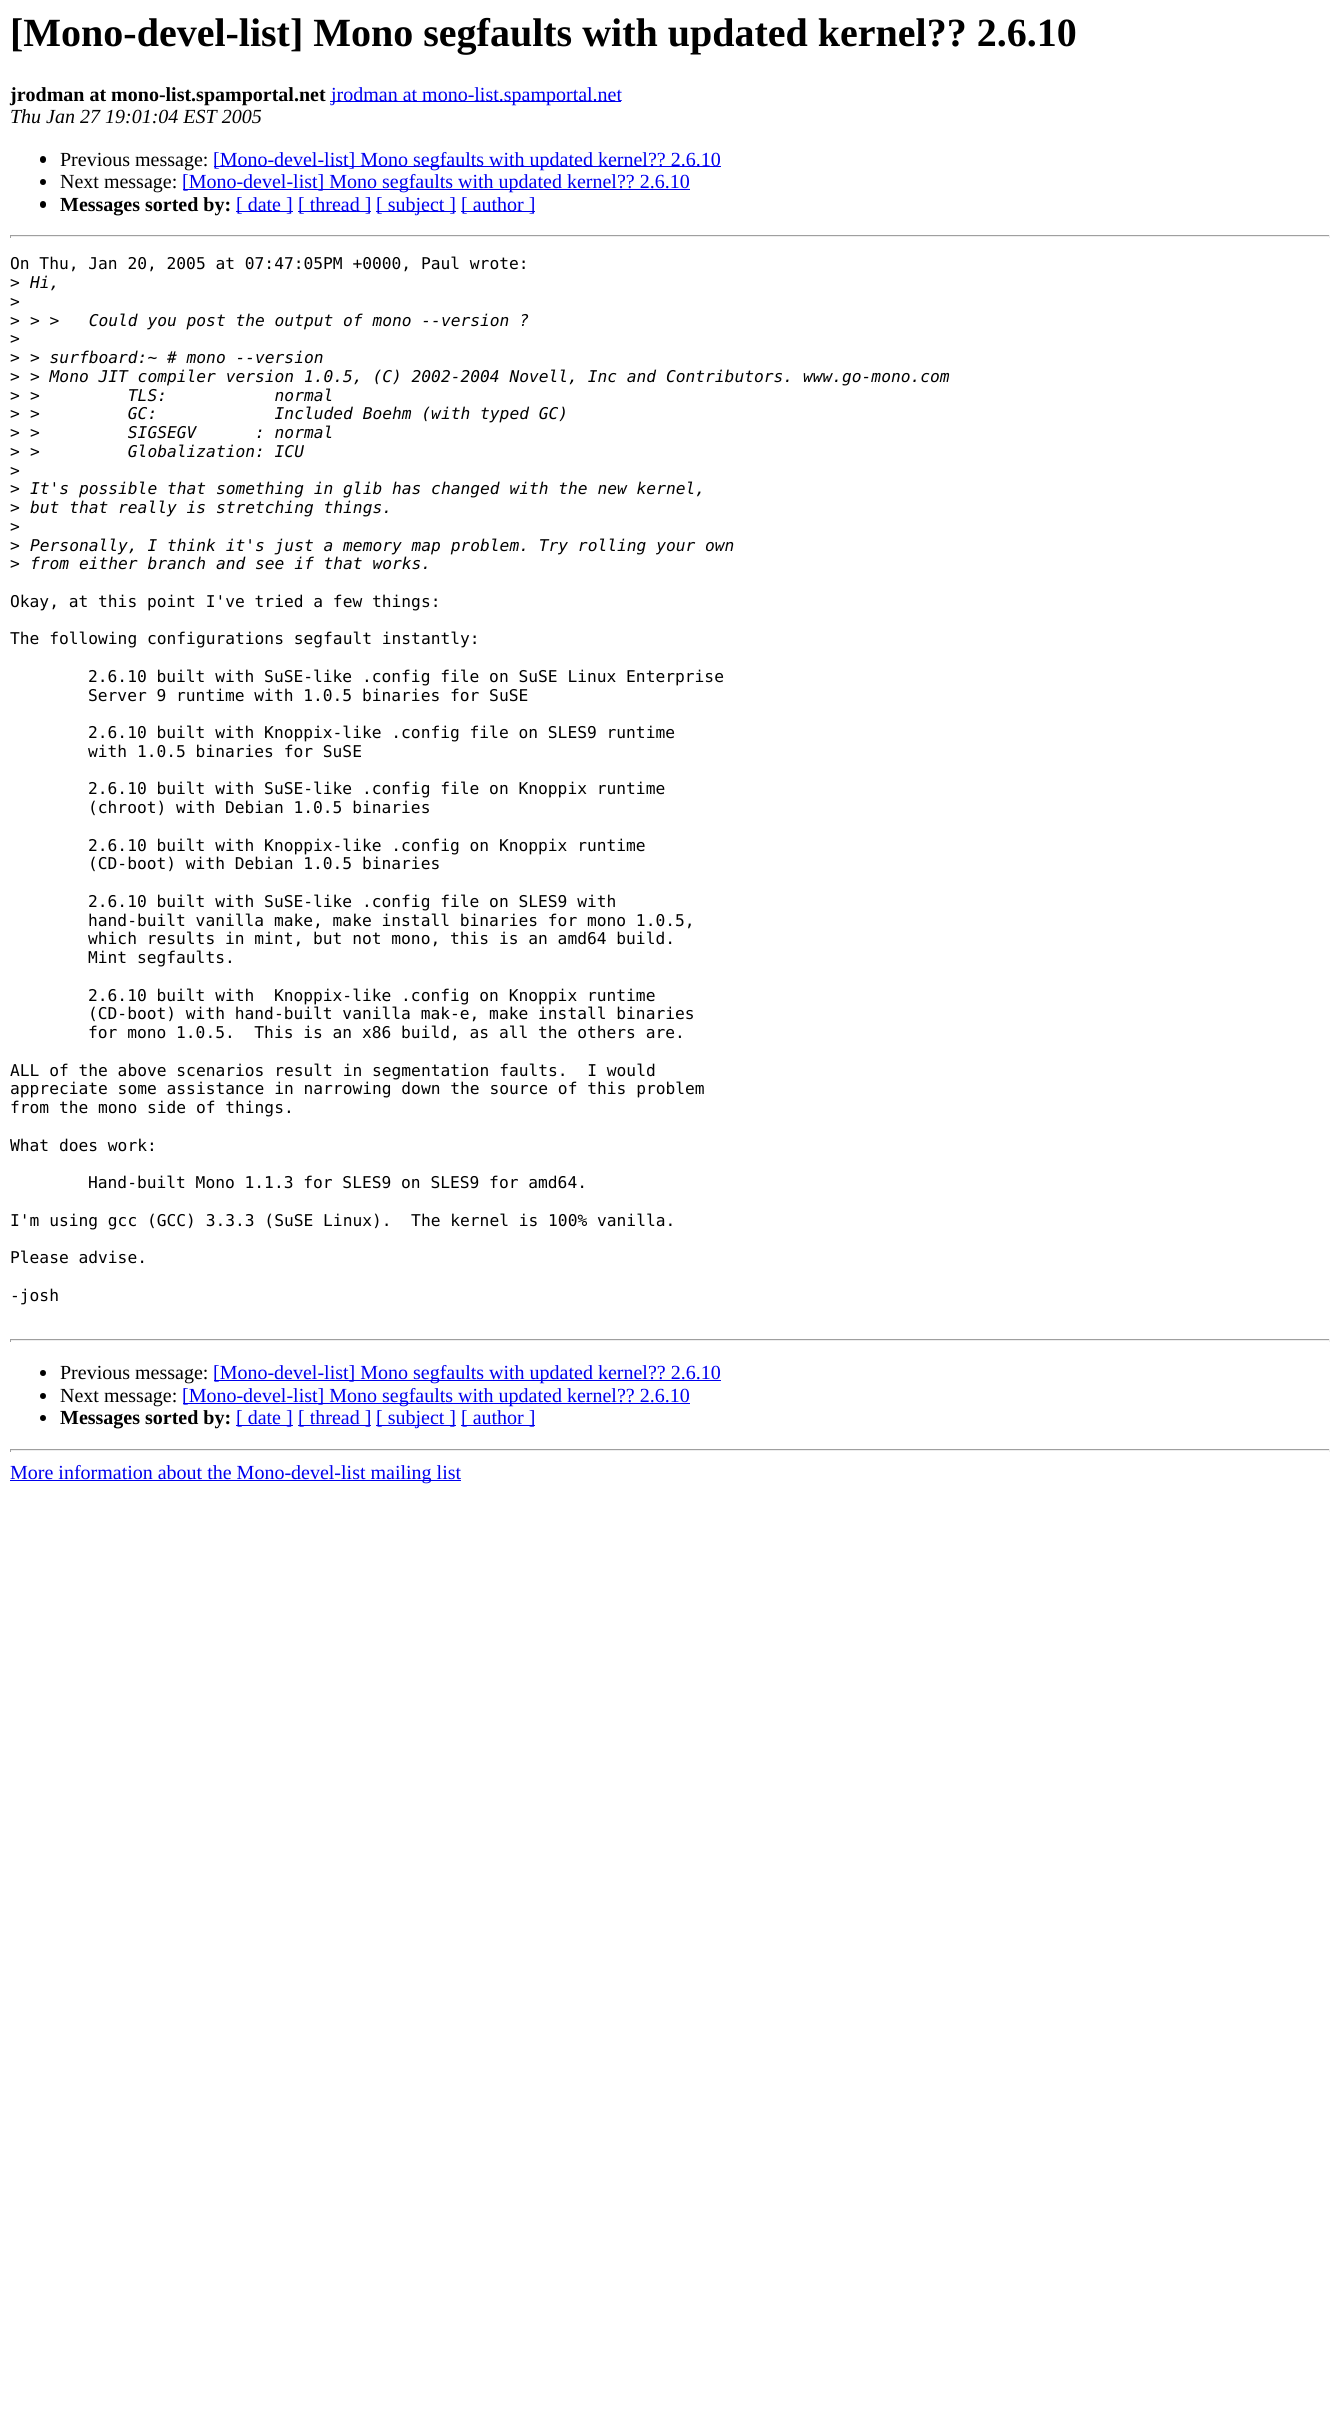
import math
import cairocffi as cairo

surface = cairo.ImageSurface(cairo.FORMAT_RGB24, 1339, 2422)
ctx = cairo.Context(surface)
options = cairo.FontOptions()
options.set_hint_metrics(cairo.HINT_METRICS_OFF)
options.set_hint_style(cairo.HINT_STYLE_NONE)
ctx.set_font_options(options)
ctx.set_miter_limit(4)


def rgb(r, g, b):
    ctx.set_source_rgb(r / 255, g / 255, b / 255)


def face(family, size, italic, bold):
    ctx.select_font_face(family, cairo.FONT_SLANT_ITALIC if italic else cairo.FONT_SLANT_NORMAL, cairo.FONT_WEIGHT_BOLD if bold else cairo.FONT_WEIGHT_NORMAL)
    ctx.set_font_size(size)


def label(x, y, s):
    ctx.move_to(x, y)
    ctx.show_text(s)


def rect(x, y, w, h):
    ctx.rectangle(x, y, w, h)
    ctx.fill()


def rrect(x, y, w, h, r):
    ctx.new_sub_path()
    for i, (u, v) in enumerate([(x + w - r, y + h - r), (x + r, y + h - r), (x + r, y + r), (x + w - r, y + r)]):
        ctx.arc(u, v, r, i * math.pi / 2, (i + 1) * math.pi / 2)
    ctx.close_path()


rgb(255, 255, 255)
ctx.paint()
face('Liberation Serif', 40, 0, 1)
rgb(0, 0, 0)
label(10, 46, '[Mono-devel-list] Mono segfaults with updated kernel?? 2.6.10')
face('Liberation Serif', 20, 0, 1)
label(10, 101, 'jrodman at mono-list.spamportal.net')
rgb(0, 0, 238)
rect(330, 101, 291, 1)
face('Liberation Serif', 20, 0, 0)
label(331, 101, 'jrodman at mono-list.spamportal.net')
face('Liberation Serif', 20, 1, 0)
rgb(0, 0, 0)
label(10, 123, 'Thu Jan 27 19:01:04 EST 2005')
rrect(40, 156, 6, 7, 3)
ctx.fill()
face('Liberation Serif', 20, 0, 0)
label(60, 166, 'Previous message:')
rgb(0, 0, 238)
rect(214, 166, 507, 1)
label(213, 166, '[Mono-devel-list] Mono segfaults with updated kernel?? 2.6.10')
rgb(0, 0, 0)
ctx.new_path()
ctx.arc(43, 182, 3, 0, 2 * math.pi)
ctx.fill()
label(60, 188, 'Next message:')
rgb(0, 0, 238)
rect(183, 189, 507, 1)
label(182, 188, '[Mono-devel-list] Mono segfaults with updated kernel?? 2.6.10')
rgb(0, 0, 0)
rrect(40, 201, 6, 7, 3)
ctx.fill()
face('Liberation Serif', 20, 0, 1)
label(60, 211, 'Messages sorted by:')
rgb(0, 0, 238)
rect(236, 211, 57, 1)
face('Liberation Serif', 20, 0, 0)
label(236, 211, '[ date ]')
rect(298, 211, 73, 1)
label(298, 211, '[ thread ]')
rect(376, 211, 80, 1)
label(376, 211, '[ subject ]')
rect(461, 211, 74, 1)
label(461, 211, '[ author ]')
rgb(159, 159, 159)
rect(10, 235, 1320, 1)
rgb(238, 238, 238)
rect(1329, 235, 1, 3)
rect(10, 236, 1320, 1)
rgb(159, 159, 159)
rect(10, 235, 1, 3)
face('DejaVu Sans Mono', 16.25, 0, 0)
rgb(0, 0, 0)
label(10, 269, 'On Thu, Jan 20, 2005 at 07:47:05PM +0000, Paul wrote:')
label(10, 288, '>')
face('DejaVu Sans Mono', 16.25, 1, 0)
label(30, 288, 'Hi,')
face('DejaVu Sans Mono', 16.25, 0, 0)
label(10, 307, '>')
label(10, 326, '>')
face('DejaVu Sans Mono', 16.25, 1, 0)
label(30, 326, '> >   Could you post the output of mono --version ?')
face('DejaVu Sans Mono', 16.25, 0, 0)
label(10, 344, '>')
label(10, 363, '>')
face('DejaVu Sans Mono', 16.25, 1, 0)
label(30, 363, '> surfboard:~ # mono --version')
face('DejaVu Sans Mono', 16.25, 0, 0)
label(10, 382, '>')
face('DejaVu Sans Mono', 16.25, 1, 0)
label(30, 382, '> Mono JIT compiler version 1.0.5, (C) 2002-2004 Novell, Inc and Contributors. www.go-mono.com')
face('DejaVu Sans Mono', 16.25, 0, 0)
label(10, 401, '>')
face('DejaVu Sans Mono', 16.25, 1, 0)
label(30, 401, '>         TLS:           normal')
face('DejaVu Sans Mono', 16.25, 0, 0)
label(10, 419, '>')
face('DejaVu Sans Mono', 16.25, 1, 0)
label(30, 419, '>         GC:            Included Boehm (with typed GC)')
face('DejaVu Sans Mono', 16.25, 0, 0)
label(10, 438, '>')
face('DejaVu Sans Mono', 16.25, 1, 0)
label(30, 438, '>         SIGSEGV      : normal')
face('DejaVu Sans Mono', 16.25, 0, 0)
label(10, 457, '>')
face('DejaVu Sans Mono', 16.25, 1, 0)
label(30, 457, '>         Globalization: ICU')
face('DejaVu Sans Mono', 16.25, 0, 0)
label(10, 476, '>')
label(10, 494, '>')
face('DejaVu Sans Mono', 16.25, 1, 0)
label(30, 494, 'It\'s possible that something in glib has changed with the new kernel,')
face('DejaVu Sans Mono', 16.25, 0, 0)
label(10, 513, '>')
face('DejaVu Sans Mono', 16.25, 1, 0)
label(30, 513, 'but that really is stretching things.')
face('DejaVu Sans Mono', 16.25, 0, 0)
label(10, 532, '>')
label(10, 551, '>')
face('DejaVu Sans Mono', 16.25, 1, 0)
label(30, 551, 'Personally, I think it\'s just a memory map problem. Try rolling your own')
face('DejaVu Sans Mono', 16.25, 0, 0)
label(10, 569, '>')
face('DejaVu Sans Mono', 16.25, 1, 0)
label(30, 569, 'from either branch and see if that works.')
face('DejaVu Sans Mono', 16.25, 0, 0)
label(10, 607, 'Okay, at this point I\'ve tried a few things:')
label(10, 644, 'The following configurations segfault instantly:')
label(88, 682, '2.6.10 built with SuSE-like .config file on SuSE Linux Enterprise')
label(88, 701, 'Server 9 runtime with 1.0.5 binaries for SuSE')
label(88, 738, '2.6.10 built with Knoppix-like .config file on SLES9 runtime')
label(88, 757, 'with 1.0.5 binaries for SuSE')
label(88, 794, '2.6.10 built with SuSE-like .config file on Knoppix runtime')
label(88, 813, '(chroot) with Debian 1.0.5 binaries')
label(88, 851, '2.6.10 built with Knoppix-like .config on Knoppix runtime')
label(88, 869, '(CD-boot) with Debian 1.0.5 binaries')
label(88, 907, '2.6.10 built with SuSE-like .config file on SLES9 with')
label(88, 926, 'hand-built vanilla make, make install binaries for mono 1.0.5,')
label(88, 944, 'which results in mint, but not mono, this is an amd64 build.')
label(88, 963, 'Mint segfaults.')
label(88, 1001, '2.6.10 built with  Knoppix-like .config on Knoppix runtime')
label(88, 1019, '(CD-boot) with hand-built vanilla mak-e, make install binaries')
label(88, 1038, 'for mono 1.0.5.  This is an x86 build, as all the others are.')
label(10, 1076, 'ALL of the above scenarios result in segmentation faults.  I would')
label(10, 1094, 'appreciate some assistance in narrowing down the source of this problem')
label(10, 1113, 'from the mono side of things.')
label(10, 1151, 'What does work:')
label(88, 1188, 'Hand-built Mono 1.1.3 for SLES9 on SLES9 for amd64.')
label(10, 1226, 'I\'m using gcc (GCC) 3.3.3 (SuSE Linux).  The kernel is 100% vanilla.')
label(10, 1263, 'Please advise.')
label(10, 1301, '-josh')
rgb(159, 159, 159)
rect(10, 1339, 1320, 1)
rgb(238, 238, 238)
rect(1329, 1339, 1, 3)
rect(10, 1340, 1320, 1)
rgb(159, 159, 159)
rect(10, 1339, 1, 3)
rgb(0, 0, 0)
ctx.new_path()
ctx.arc(43, 1373, 3, 0, 2 * math.pi)
ctx.fill()
face('Liberation Serif', 20, 0, 0)
label(60, 1379, 'Previous message:')
rgb(0, 0, 238)
rect(214, 1380, 507, 1)
label(213, 1379, '[Mono-devel-list] Mono segfaults with updated kernel?? 2.6.10')
rgb(0, 0, 0)
ctx.new_path()
ctx.arc(43, 1396, 3, 0, 2 * math.pi)
ctx.fill()
label(60, 1402, 'Next message:')
rgb(0, 0, 238)
rect(183, 1403, 507, 1)
label(182, 1402, '[Mono-devel-list] Mono segfaults with updated kernel?? 2.6.10')
rgb(0, 0, 0)
ctx.new_path()
ctx.arc(43, 1418, 3, 0, 2 * math.pi)
ctx.fill()
face('Liberation Serif', 20, 0, 1)
label(60, 1424, 'Messages sorted by:')
rgb(0, 0, 238)
rect(236, 1425, 57, 1)
face('Liberation Serif', 20, 0, 0)
label(236, 1424, '[ date ]')
rect(298, 1425, 73, 1)
label(298, 1424, '[ thread ]')
rect(376, 1425, 80, 1)
label(376, 1424, '[ subject ]')
rect(461, 1425, 74, 1)
label(461, 1424, '[ author ]')
rgb(159, 159, 159)
rect(10, 1449, 1320, 1)
rgb(238, 238, 238)
rect(1329, 1449, 1, 3)
rect(10, 1450, 1320, 1)
rgb(159, 159, 159)
rect(10, 1449, 1, 3)
rgb(0, 0, 238)
rect(10, 1480, 451, 1)
label(10, 1479, 'More information about the Mono-devel-list mailing list')
surface.write_to_png('render.png')
